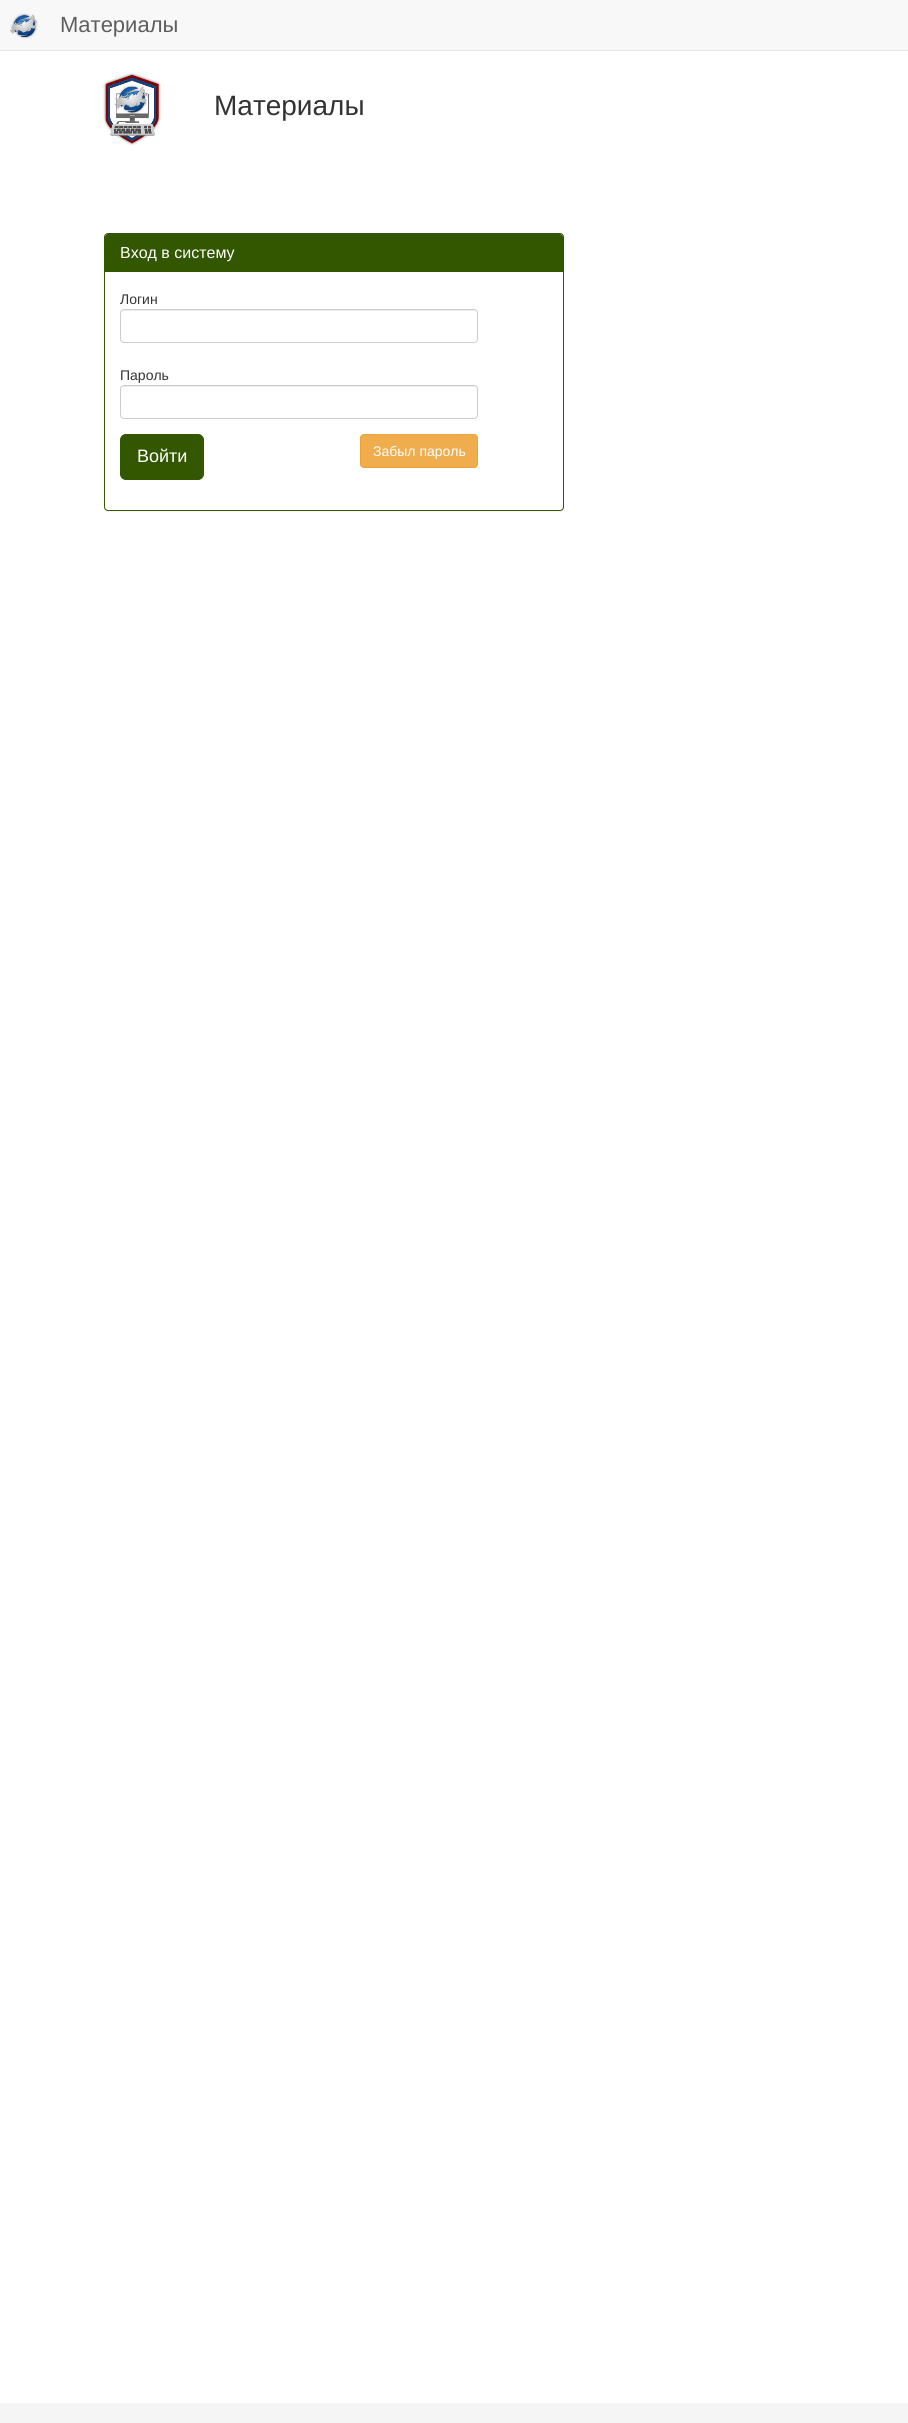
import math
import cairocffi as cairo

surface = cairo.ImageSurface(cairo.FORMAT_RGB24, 908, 2423)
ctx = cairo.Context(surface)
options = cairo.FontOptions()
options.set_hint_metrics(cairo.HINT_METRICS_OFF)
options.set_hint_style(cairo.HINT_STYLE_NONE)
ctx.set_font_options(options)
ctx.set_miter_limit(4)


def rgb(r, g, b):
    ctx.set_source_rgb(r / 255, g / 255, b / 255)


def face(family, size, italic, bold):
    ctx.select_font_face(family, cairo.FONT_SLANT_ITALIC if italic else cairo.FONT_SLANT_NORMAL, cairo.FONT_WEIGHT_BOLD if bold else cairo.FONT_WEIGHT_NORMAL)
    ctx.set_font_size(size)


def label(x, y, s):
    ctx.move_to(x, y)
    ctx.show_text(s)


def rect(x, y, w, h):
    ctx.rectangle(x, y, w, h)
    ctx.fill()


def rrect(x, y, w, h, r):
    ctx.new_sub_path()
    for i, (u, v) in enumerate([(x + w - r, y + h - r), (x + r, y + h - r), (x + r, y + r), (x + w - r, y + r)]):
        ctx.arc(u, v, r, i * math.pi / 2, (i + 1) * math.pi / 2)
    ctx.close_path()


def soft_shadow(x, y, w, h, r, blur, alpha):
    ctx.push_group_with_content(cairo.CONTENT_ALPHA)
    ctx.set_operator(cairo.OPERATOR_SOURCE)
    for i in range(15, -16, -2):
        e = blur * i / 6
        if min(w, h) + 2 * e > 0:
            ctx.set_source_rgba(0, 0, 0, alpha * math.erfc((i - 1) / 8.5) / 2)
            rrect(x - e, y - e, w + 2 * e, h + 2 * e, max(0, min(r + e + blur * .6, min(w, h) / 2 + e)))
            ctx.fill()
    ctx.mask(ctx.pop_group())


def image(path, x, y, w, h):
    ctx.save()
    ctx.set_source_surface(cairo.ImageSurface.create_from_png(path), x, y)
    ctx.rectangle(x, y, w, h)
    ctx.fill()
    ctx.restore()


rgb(255, 255, 255)
ctx.paint()
rgb(248, 248, 248)
rect(0, 0, 908, 50)
rgb(231, 231, 231)
rect(0, 50, 908, 1)
image('image0.png', 10, 13, 28, 26)
face('Liberation Sans', 22, 0, 0)
rgb(94, 94, 94)
label(60, 32, 'Материалы')
image('image1.png', 103, 73, 58, 72)
face('Liberation Sans', 28, 0, 0)
rgb(51, 51, 51)
label(214, 115, 'Материалы')
rgb(0, 0, 0)
soft_shadow(104, 234, 460, 278, 4, 0.5, 0.05)
rgb(255, 255, 255)
rrect(104.5, 233.5, 459, 277, 3.5)
ctx.fill_preserve()
rgb(51, 87, 1)
ctx.set_line_width(1)
ctx.stroke()
ctx.new_path()
ctx.move_to(108, 234)
ctx.line_to(560, 234)
ctx.curve_to(561.5, 234, 563, 235.5, 563, 237)
ctx.line_to(563, 272)
ctx.line_to(105, 272)
ctx.line_to(105, 237)
ctx.curve_to(105, 235.5, 106.5, 234, 108, 234)
ctx.close_path()
ctx.fill()
face('Liberation Sans', 16, 0, 0)
rgb(255, 255, 255)
label(120, 258, 'Вход в систему')
face('Liberation Sans', 14, 0, 0)
rgb(51, 51, 51)
label(120, 304, 'Логин')
rgb(236, 236, 236)
ctx.new_path()
ctx.move_to(124, 311)
ctx.line_to(474, 311)
ctx.curve_to(476, 311, 477, 312, 477, 314)
ctx.curve_to(477, 312, 476, 310, 474, 310)
ctx.line_to(124, 310)
ctx.line_to(122, 311)
ctx.line_to(121, 314)
ctx.curve_to(121, 312, 122, 311, 124, 311)
ctx.close_path()
ctx.fill()
rrect(120.5, 309.5, 357, 33, 3.5)
rgb(204, 204, 204)
ctx.stroke()
rgb(51, 51, 51)
label(120, 380, 'Пароль')
rgb(236, 236, 236)
ctx.new_path()
ctx.move_to(124, 387)
ctx.line_to(474, 387)
ctx.curve_to(476, 387, 477, 388, 477, 390)
ctx.curve_to(477, 388, 476, 386, 474, 386)
ctx.line_to(124, 386)
ctx.line_to(122, 387)
ctx.line_to(121, 390)
ctx.curve_to(121, 388, 122, 387, 124, 387)
ctx.close_path()
ctx.fill()
rrect(120.5, 385.5, 357, 33, 3.5)
rgb(204, 204, 204)
ctx.stroke()
rgb(51, 87, 1)
rrect(120.5, 434.5, 83, 45, 5.5)
ctx.fill_preserve()
ctx.stroke()
face('Liberation Sans', 18, 0, 0)
rgb(255, 255, 255)
label(137, 462, 'Войти')
rgb(240, 173, 78)
rrect(360.5, 434.5, 117, 33, 3.5)
ctx.fill_preserve()
rgb(238, 162, 54)
ctx.stroke()
face('Liberation Sans', 14, 0, 0)
rgb(255, 255, 255)
label(373, 456, 'Забыл пароль')
rgb(245, 245, 245)
rect(0, 2403, 908, 20)
surface.write_to_png('render.png')
